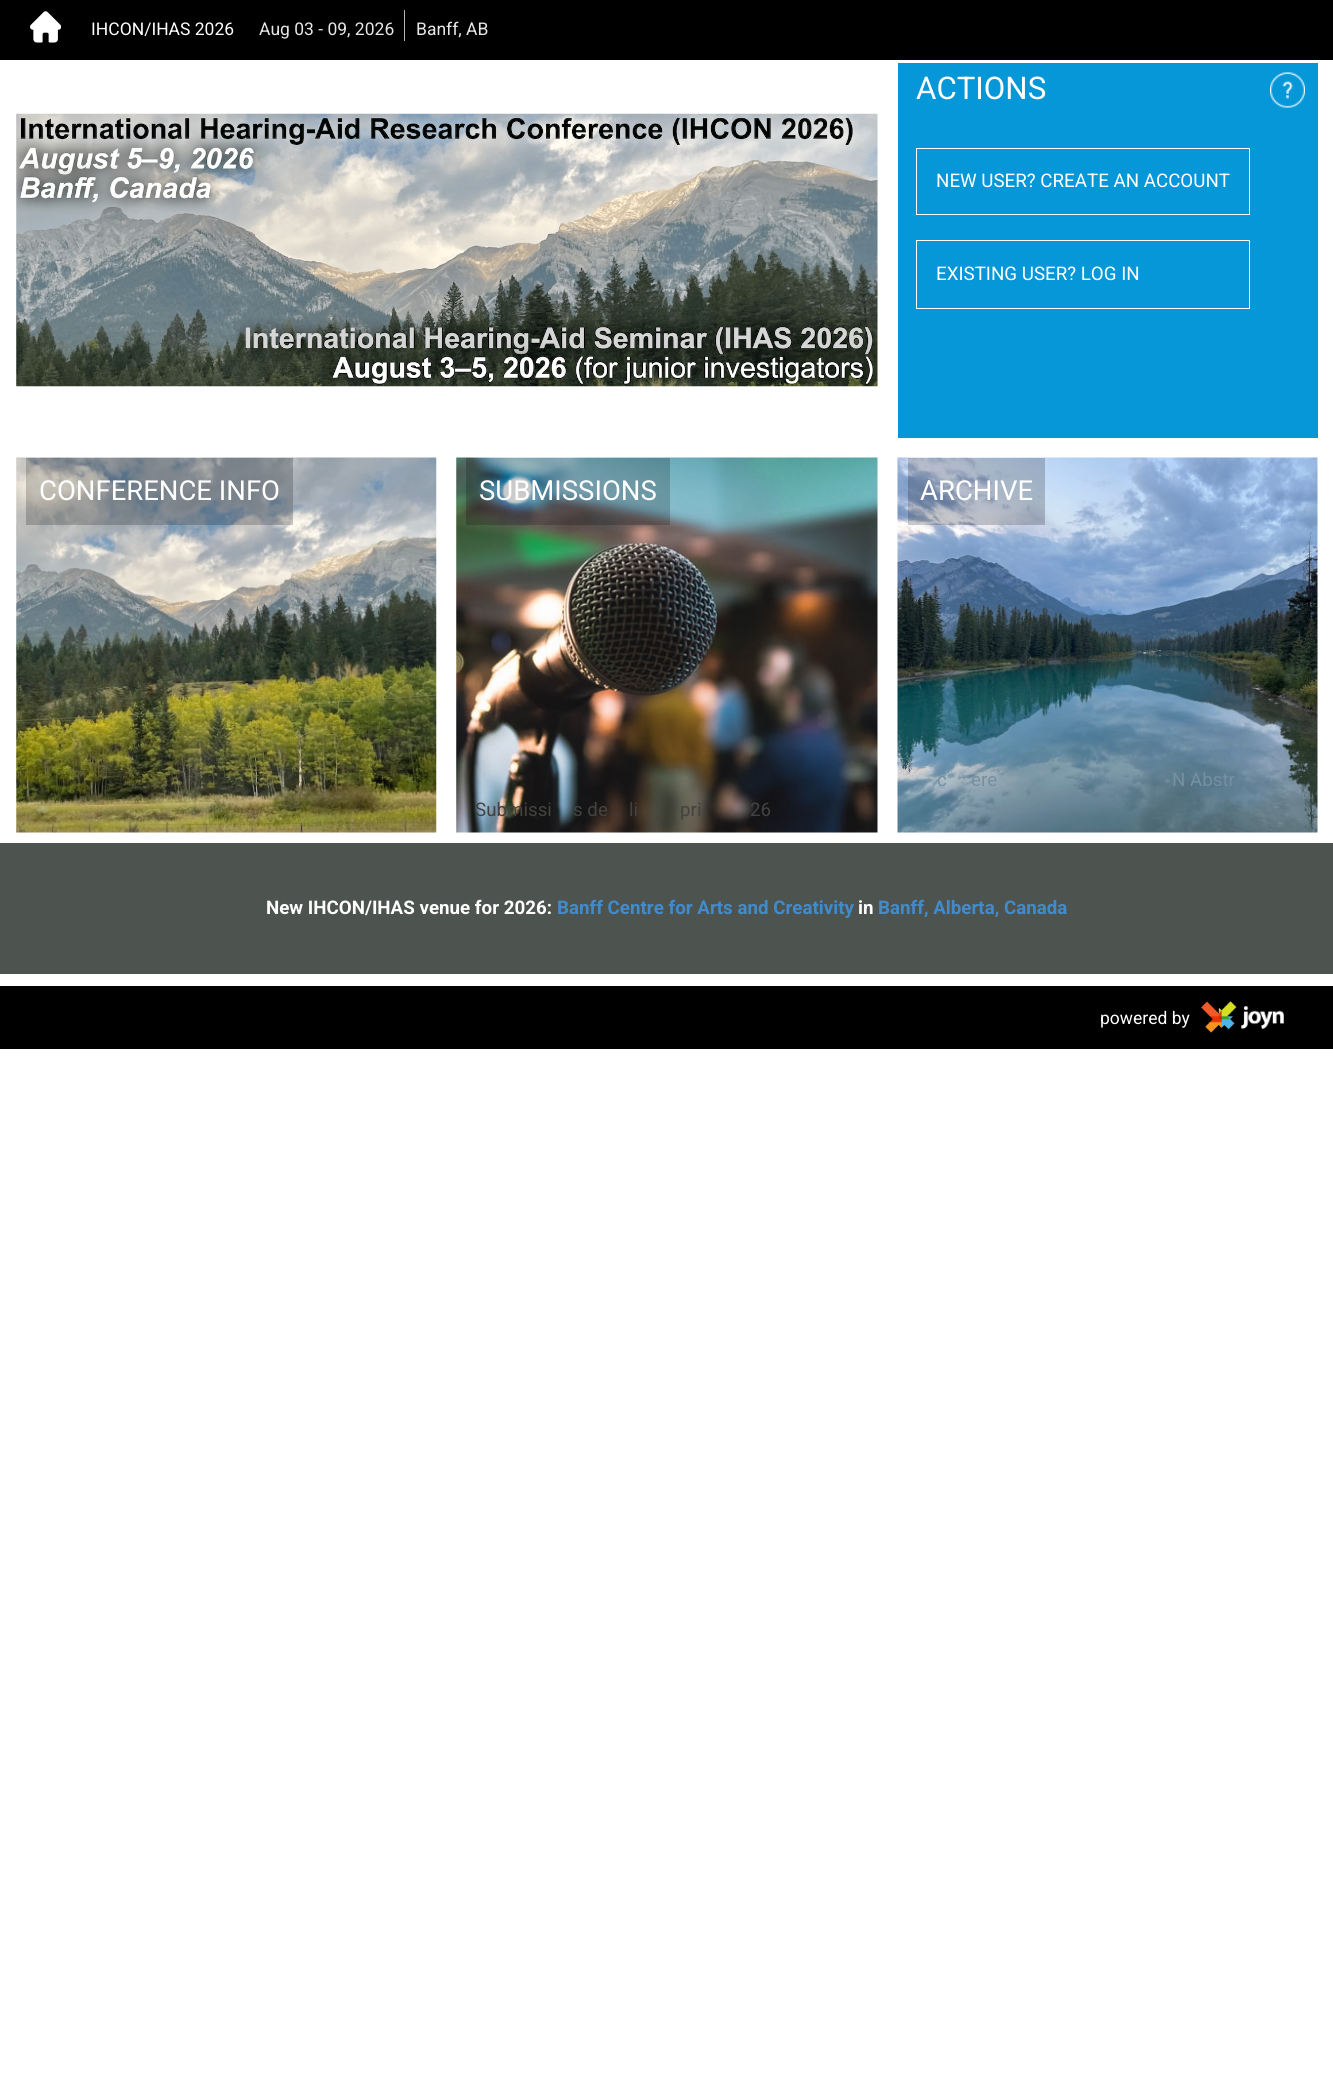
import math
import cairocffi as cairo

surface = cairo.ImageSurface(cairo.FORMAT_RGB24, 1333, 2083)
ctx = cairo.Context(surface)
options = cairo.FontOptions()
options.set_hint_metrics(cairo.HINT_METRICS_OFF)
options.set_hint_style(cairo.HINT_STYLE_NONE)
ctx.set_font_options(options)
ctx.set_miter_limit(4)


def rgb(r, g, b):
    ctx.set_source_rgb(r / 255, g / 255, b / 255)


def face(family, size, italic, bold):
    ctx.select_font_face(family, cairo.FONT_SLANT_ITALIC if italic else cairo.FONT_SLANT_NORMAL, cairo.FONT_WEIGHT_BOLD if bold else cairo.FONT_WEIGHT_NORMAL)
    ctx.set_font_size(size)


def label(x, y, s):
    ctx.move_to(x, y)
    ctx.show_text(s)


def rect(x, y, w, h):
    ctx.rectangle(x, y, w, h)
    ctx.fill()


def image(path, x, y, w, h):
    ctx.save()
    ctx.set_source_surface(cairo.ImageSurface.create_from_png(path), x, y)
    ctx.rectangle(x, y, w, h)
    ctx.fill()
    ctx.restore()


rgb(255, 255, 255)
ctx.paint()
rgb(0, 0, 0)
rect(0, 0, 1333, 60)
image('image0.png', 30, 11, 31, 32)
face('Roboto', 17.5, 0, 0)
rgb(255, 255, 255)
label(91, 35, 'IHCON/IHAS 2026')
rgb(231, 231, 231)
label(259, 35, 'Aug 03 - 09, 2026')
rgb(183, 182, 182)
rect(404, 10, 1, 31)
rgb(231, 231, 231)
label(416, 35, 'Banff, AB')
image('image1.png', 16, 113, 862, 274)
rgb(6, 151, 216)
rect(898, 63, 420, 375)
face('Roboto', 31.25, 0, 0)
rgb(255, 255, 255)
label(916, 99, 'ACTIONS')
image('image2.png', 1270, 72, 35, 36)
ctx.rectangle(916.5, 148.5, 333, 66)
ctx.set_line_width(1)
ctx.stroke()
face('Roboto', 18.75, 0, 0)
label(936, 187, 'NEW USER? CREATE AN ACCOUNT')
ctx.rectangle(916.5, 240.5, 333, 68)
ctx.stroke()
label(936, 280, 'EXISTING USER? LOG IN')
image('image3.png', 16, 457, 421, 376)
ctx.set_source_rgba(0, 0, 0, 0.2)
rect(26, 458, 267, 67)
face('Roboto', 27.5, 0, 0)
rgb(255, 255, 255)
label(39, 500, 'CONFERENCE INFO')
image('image4.png', 456, 457, 422, 376)
ctx.set_source_rgba(0, 0, 0, 0.2)
rect(466, 458, 204, 67)
rgb(255, 255, 255)
label(479, 500, 'SUBMISSIONS')
face('Roboto', 18.75, 0, 0)
rgb(67, 66, 63)
label(475, 816, 'Submissi')
label(573, 816, 's de')
label(629, 816, 'li')
label(680, 816, 'pri')
label(750, 816, '26')
image('image5.png', 897, 457, 421, 376)
ctx.set_source_rgba(0, 0, 0, 0.2)
rect(908, 458, 137, 67)
face('Roboto', 27.5, 0, 0)
rgb(255, 255, 255)
label(920, 500, 'ARCHIVE')
face('Roboto', 18.75, 0, 0)
rgb(117, 144, 161)
label(937, 786, 'c')
label(971, 786, 'ere')
label(1172, 786, 'N Abstr')
rgb(77, 83, 79)
rect(0, 843, 1333, 131)
face('Roboto', 18.75, 0, 1)
rgb(255, 255, 255)
label(266, 914, 'New IHCON/IHAS venue for 2026:')
rgb(66, 139, 202)
label(557, 914, 'Banff Centre for Arts and Creativity')
rgb(255, 255, 255)
label(858, 914, 'in')
rgb(66, 139, 202)
label(878, 914, 'Banff, Alberta, Canada')
rgb(0, 0, 0)
rect(0, 986, 1333, 63)
face('Roboto', 17.5, 0, 0)
rgb(255, 255, 255)
label(1100, 1024, 'powered by')
image('image6.png', 1201, 1001, 36, 32)
image('image7.png', 1241, 1006, 43, 23)
surface.write_to_png('render.png')
